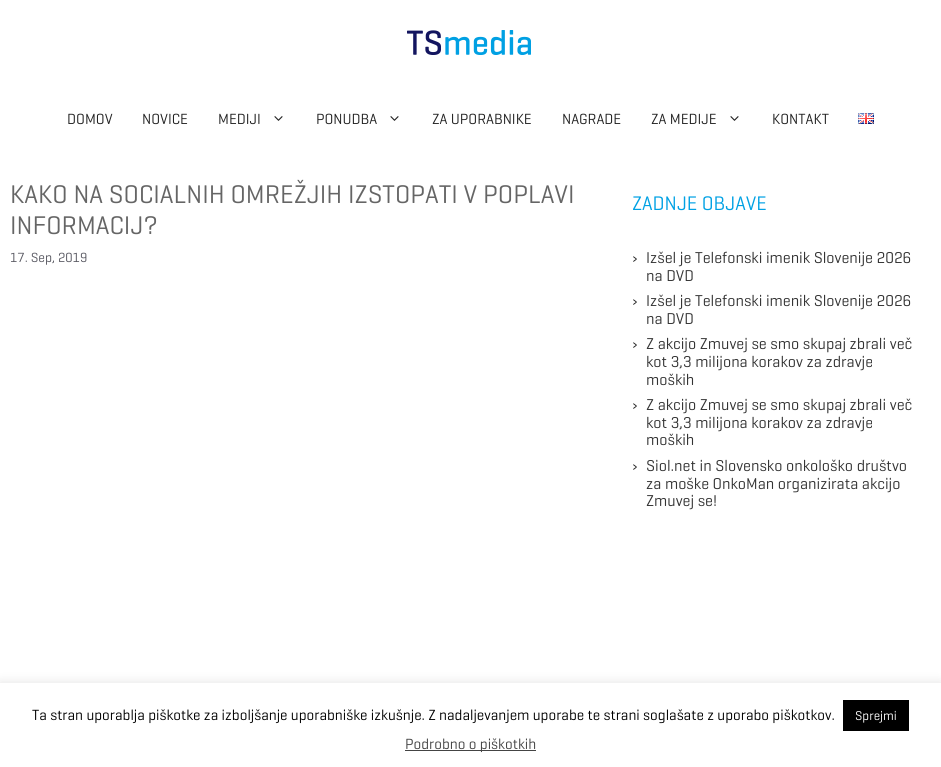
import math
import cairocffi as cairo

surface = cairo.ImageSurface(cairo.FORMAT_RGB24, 941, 767)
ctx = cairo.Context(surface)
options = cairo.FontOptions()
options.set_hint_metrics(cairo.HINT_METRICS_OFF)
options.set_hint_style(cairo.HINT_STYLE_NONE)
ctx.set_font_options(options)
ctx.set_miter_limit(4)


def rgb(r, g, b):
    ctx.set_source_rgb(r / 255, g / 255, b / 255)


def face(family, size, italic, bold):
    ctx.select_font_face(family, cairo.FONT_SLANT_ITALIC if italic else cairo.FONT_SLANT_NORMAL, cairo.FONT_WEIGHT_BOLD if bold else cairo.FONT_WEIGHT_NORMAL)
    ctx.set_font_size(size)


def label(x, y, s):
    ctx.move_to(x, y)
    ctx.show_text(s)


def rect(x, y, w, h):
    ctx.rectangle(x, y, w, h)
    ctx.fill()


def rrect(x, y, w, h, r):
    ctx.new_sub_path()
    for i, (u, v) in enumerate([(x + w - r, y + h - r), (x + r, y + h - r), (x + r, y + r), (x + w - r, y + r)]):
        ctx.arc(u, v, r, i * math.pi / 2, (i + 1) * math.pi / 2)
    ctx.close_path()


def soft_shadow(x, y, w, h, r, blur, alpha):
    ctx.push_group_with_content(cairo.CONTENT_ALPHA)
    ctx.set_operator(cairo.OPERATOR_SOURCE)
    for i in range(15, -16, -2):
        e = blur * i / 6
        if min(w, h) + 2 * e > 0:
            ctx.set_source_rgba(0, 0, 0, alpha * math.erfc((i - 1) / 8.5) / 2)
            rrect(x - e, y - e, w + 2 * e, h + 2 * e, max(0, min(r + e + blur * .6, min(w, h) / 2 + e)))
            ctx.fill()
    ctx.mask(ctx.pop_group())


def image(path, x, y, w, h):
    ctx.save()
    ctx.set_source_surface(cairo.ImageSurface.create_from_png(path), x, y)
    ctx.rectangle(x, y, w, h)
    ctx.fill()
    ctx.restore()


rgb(255, 255, 255)
ctx.paint()
image('image0.png', 407, 30, 124, 25)
face('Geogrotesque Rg', 15, 0, 0)
rgb(34, 34, 34)
label(67, 124, 'DOMOV')
label(142, 124, 'NOVICE')
label(218, 124, 'MEDIJI')
image('image1.png', 274, 116, 9, 5)
label(316, 124, 'PONUDBA')
image('image1.png', 390, 116, 9, 5)
label(432, 124, 'ZA UPORABNIKE')
label(562, 124, 'NAGRADE')
label(651, 124, 'ZA MEDIJE')
image('image1.png', 730, 116, 9, 5)
label(772, 124, 'KONTAKT')
image('image2.png', 858, 113, 16, 11)
face('Geogrotesque Rg', 26, 0, 0)
rgb(101, 101, 101)
label(10, 203, 'KAKO NA SOCIALNIH OMREŽJIH IZSTOPATI V POPLAVI')
label(10, 234, 'INFORMACIJ?')
face('Geogrotesque Rg', 13.5, 0, 0)
rgb(87, 87, 96)
label(10, 262, '17. Sep, 2019')
face('Geogrotesque Rg', 20, 0, 0)
rgb(0, 161, 228)
label(632, 210, 'ZADNJE OBJAVE')
face('Geogrotesque Rg', 16, 0, 0)
rgb(34, 34, 34)
label(632, 263, '›')
rgb(51, 51, 51)
label(646, 263, 'Izšel je Telefonski imenik Slovenije 2026')
label(646, 281, 'na DVD')
rgb(34, 34, 34)
label(632, 306, '›')
rgb(51, 51, 51)
label(646, 306, 'Izšel je Telefonski imenik Slovenije 2026')
label(646, 324, 'na DVD')
rgb(34, 34, 34)
label(632, 349, '›')
rgb(51, 51, 51)
label(646, 349, 'Z akcijo Zmuvej se smo skupaj zbrali več')
label(646, 367, 'kot 3,3 milijona korakov za zdravje')
label(646, 385, 'moških')
rgb(34, 34, 34)
label(632, 410, '›')
rgb(51, 51, 51)
label(646, 410, 'Z akcijo Zmuvej se smo skupaj zbrali več')
label(646, 428, 'kot 3,3 milijona korakov za zdravje')
label(646, 445, 'moških')
rgb(34, 34, 34)
label(632, 471, '›')
rgb(51, 51, 51)
label(646, 471, 'Siol.net in Slovensko onkološko društvo')
label(646, 489, 'za moške OnkoMan organizirata akcijo')
label(646, 506, 'Zmuvej se!')
rgb(172, 171, 171)
soft_shadow(0, 682, 941, 84, 0, 5, 0.3)
rgb(255, 255, 255)
rect(0, 683, 941, 84)
face('Geogrotesque Rg', 15, 0, 0)
rgb(0, 0, 0)
label(32, 720, 'Ta stran uporablja piškotke za izboljšanje uporabniške izkušnje. Z nadaljevanjem uporabe te strani soglašate z uporabo piškotkov.')
rect(843, 700, 66, 31)
face('Geogrotesque Rg', 13, 0, 0)
rgb(255, 255, 255)
label(855, 720, 'Sprejmi')
rgb(68, 68, 68)
rect(405, 750, 131, 1)
face('Geogrotesque Rg', 15, 0, 0)
label(405, 749, 'Podrobno o piškotkih')
surface.write_to_png('render.png')
